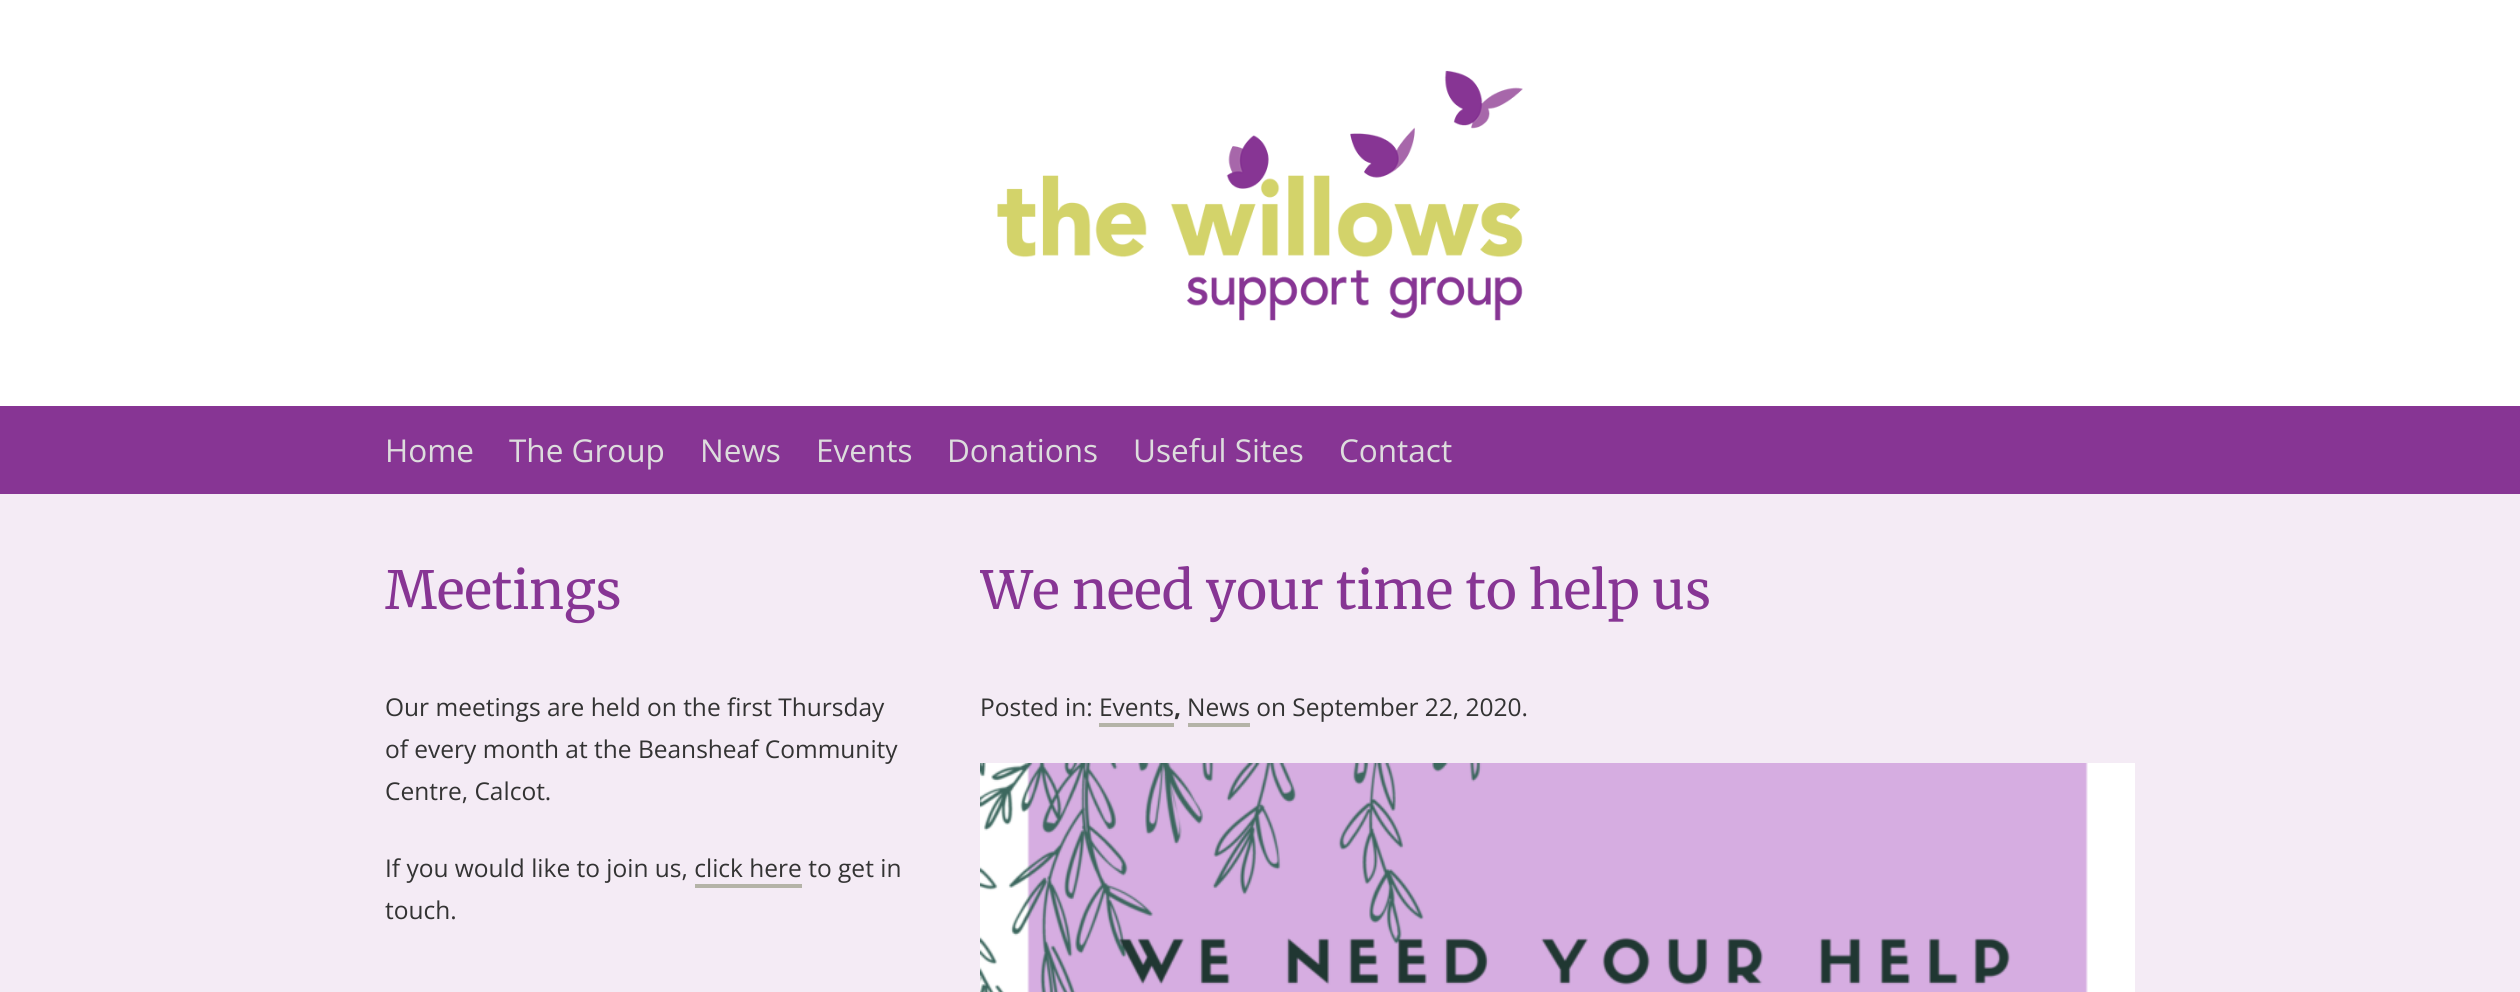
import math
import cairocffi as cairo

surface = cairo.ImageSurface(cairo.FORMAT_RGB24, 2520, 992)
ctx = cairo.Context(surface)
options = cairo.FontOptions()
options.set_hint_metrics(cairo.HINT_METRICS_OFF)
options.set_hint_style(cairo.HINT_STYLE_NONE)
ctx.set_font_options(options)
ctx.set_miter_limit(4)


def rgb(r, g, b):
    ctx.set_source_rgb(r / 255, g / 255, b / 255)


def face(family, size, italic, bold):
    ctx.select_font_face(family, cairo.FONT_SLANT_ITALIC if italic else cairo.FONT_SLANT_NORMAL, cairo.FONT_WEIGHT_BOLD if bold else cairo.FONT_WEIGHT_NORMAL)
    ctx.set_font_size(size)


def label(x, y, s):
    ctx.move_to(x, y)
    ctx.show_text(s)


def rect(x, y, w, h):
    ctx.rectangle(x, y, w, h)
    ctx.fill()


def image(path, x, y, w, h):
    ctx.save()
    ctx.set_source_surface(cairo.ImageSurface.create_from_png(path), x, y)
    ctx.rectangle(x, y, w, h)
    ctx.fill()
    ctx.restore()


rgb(244, 235, 245)
ctx.paint()
rgb(255, 255, 255)
rect(0, 0, 2520, 406)
image('image0.png', 997, 70, 526, 251)
rgb(135, 53, 148)
rect(0, 406, 2520, 88)
face('Open Sans', 31.5, 0, 0)
rgb(221, 221, 221)
label(385, 462, 'Home')
label(509, 462, 'The Group')
label(700, 462, 'News')
label(816, 462, 'Events')
label(947, 462, 'Donations')
label(1133, 462, 'Useful Sites')
label(1339, 462, 'Contact')
face('Merriweather Light', 52.5, 0, 0)
rgb(135, 53, 148)
label(385, 609, 'Meetings')
face('Open Sans', 24.5, 0, 0)
rgb(51, 51, 51)
label(385, 716, 'Our meetings are held on the first Thursday')
label(385, 758, 'of every month at the Beansheaf Community')
label(385, 800, 'Centre, Calcot.')
label(385, 877, 'If you would like to join us, click here to get in')
rgb(180, 179, 167)
rect(695, 884, 107, 4)
rgb(51, 51, 51)
label(385, 919, 'touch.')
ctx.save()
ctx.rectangle(980, 564, 1155, 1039)
ctx.clip()
face('Merriweather Light', 52.5, 0, 0)
rgb(135, 53, 148)
label(980, 609, 'We need your time to help us')
ctx.restore()
label(980, 716, 'Posted in: Events')
face('Open Sans', 24.5, 0, 1)
label(1174, 716, ',')
rgb(180, 179, 167)
rect(1099, 723, 75, 4)
rect(1188, 723, 62, 4)
face('Open Sans', 24.5, 0, 0)
rgb(51, 51, 51)
label(1187, 716, 'News on September 22, 2020.')
image('image1.png', 980, 763, 1155, 229)
surface.write_to_png('render.png')
